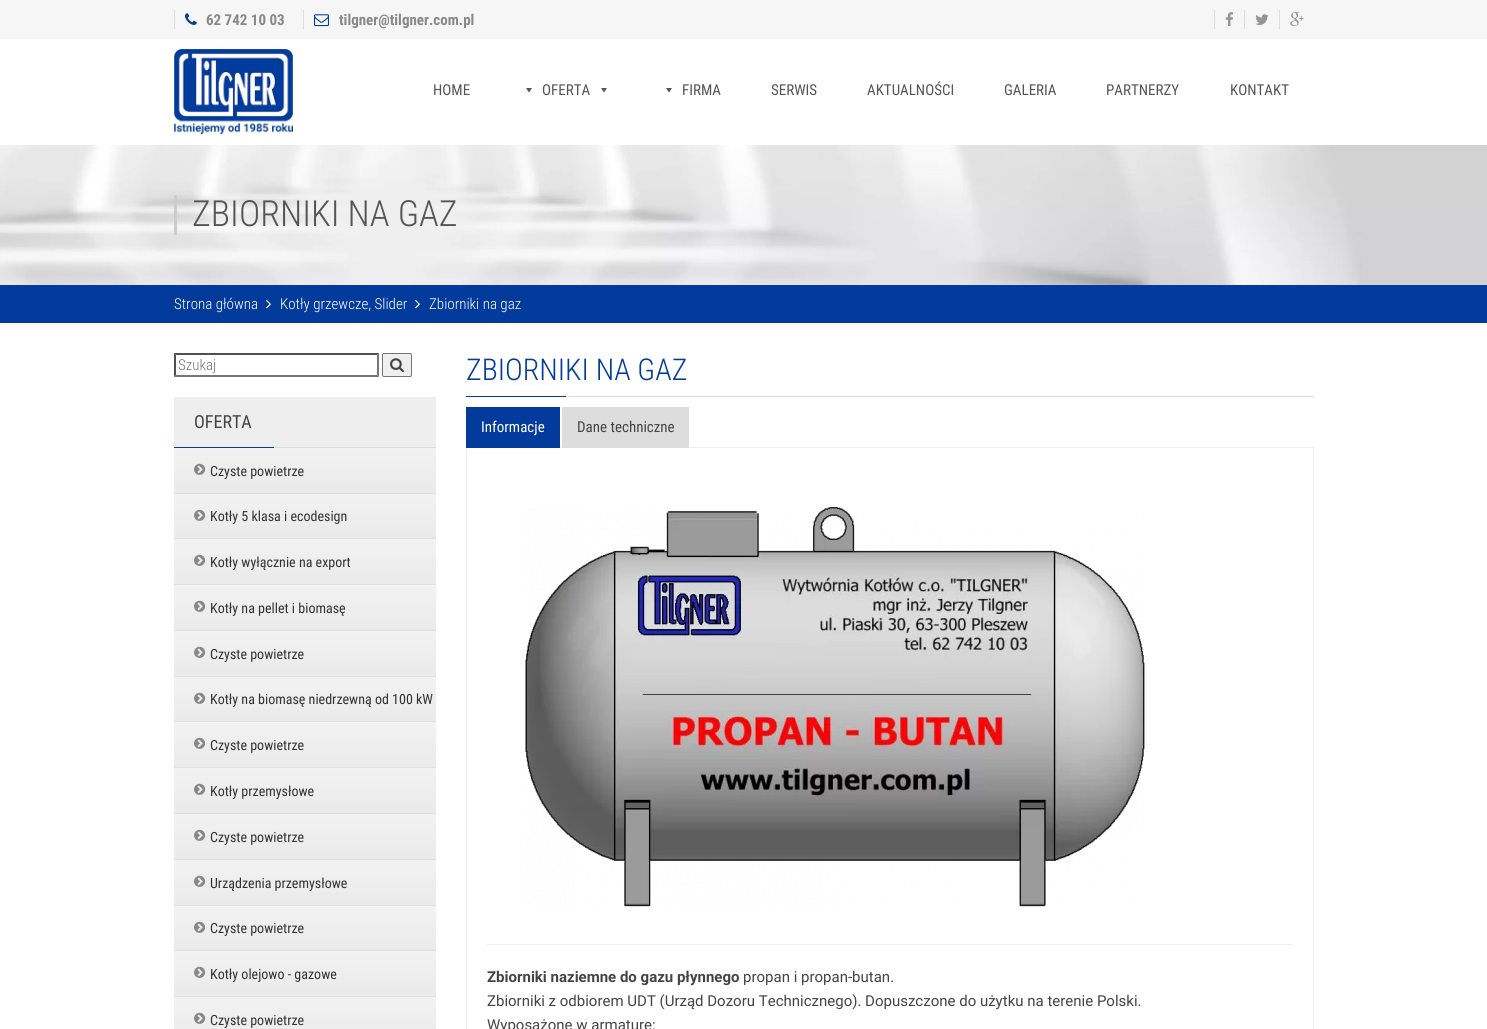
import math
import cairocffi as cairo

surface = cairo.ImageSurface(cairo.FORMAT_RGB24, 1487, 1029)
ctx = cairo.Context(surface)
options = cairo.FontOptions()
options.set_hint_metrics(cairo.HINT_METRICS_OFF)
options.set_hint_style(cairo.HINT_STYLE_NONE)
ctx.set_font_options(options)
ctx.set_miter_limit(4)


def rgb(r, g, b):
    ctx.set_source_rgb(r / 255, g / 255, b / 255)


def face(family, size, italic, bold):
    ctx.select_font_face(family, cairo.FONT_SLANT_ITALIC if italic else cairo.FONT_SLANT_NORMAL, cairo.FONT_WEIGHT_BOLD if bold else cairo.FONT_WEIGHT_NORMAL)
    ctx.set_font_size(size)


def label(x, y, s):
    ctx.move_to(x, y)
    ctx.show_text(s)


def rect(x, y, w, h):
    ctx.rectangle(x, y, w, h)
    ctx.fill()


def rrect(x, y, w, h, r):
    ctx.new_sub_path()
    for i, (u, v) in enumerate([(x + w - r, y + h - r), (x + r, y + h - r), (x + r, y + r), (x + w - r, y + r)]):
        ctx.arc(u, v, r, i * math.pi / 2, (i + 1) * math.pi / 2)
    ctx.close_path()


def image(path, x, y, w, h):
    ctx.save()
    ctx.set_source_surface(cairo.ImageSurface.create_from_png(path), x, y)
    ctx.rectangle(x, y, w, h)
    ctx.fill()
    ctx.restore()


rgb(255, 255, 255)
ctx.paint()
rgb(246, 246, 246)
rect(0, 0, 1487, 39)
rgb(221, 221, 221)
rect(174, 10, 1, 19)
image('image0.png', 185, 13, 12, 12)
face('Roboto Condensed', 15, 0, 1)
rgb(136, 136, 136)
label(206, 25, '62 742 10 03')
rgb(221, 221, 221)
rect(303, 10, 1, 19)
image('image1.png', 314, 14, 15, 13)
rgb(136, 136, 136)
label(339, 25, 'tilgner@tilgner.com.pl')
rgb(221, 221, 221)
rect(1214, 10, 1, 19)
image('image2.png', 1225, 12, 8, 15)
rect(1244, 10, 1, 19)
image('image3.png', 1255, 14, 14, 11)
rect(1279, 10, 1, 19)
image('image4.png', 1290, 12, 14, 14)
image('image5.png', 174, 49, 119, 86)
face('Roboto Condensed', 15, 0, 0)
rgb(85, 85, 85)
label(433, 95, 'HOME')
ctx.new_path()
ctx.move_to(532, 88)
ctx.line_to(529, 92.5)
ctx.line_to(526, 88)
ctx.close_path()
ctx.fill()
label(542, 95, 'OFERTA')
ctx.new_path()
ctx.move_to(607, 88)
ctx.line_to(604, 92.5)
ctx.line_to(601, 88)
ctx.close_path()
ctx.fill()
ctx.new_path()
ctx.move_to(672, 88)
ctx.line_to(669, 92.5)
ctx.line_to(666, 88)
ctx.close_path()
ctx.fill()
label(682, 95, 'FIRMA')
label(771, 95, 'SERWIS')
label(867, 95, 'AKTUALNOŚCI')
label(1004, 95, 'GALERIA')
label(1106, 95, 'PARTNERZY')
label(1230, 95, 'KONTAKT')
image('image6.png', 0, 145, 1487, 140)
rgb(204, 204, 204)
rect(174, 195, 3, 40)
face('Roboto Condensed Light', 36, 0, 0)
rgb(85, 85, 85)
label(192, 226, 'ZBIORNIKI NA GAZ')
rgb(2, 59, 156)
rect(0, 285, 1487, 38)
face('Roboto Condensed Light', 15, 0, 0)
rgb(255, 255, 255)
label(174, 309, 'Strona główna')
image('image7.png', 266, 300, 5, 9)
label(280, 309, 'Kotły grzewcze, Slider')
image('image7.png', 415, 300, 5, 9)
label(429, 309, 'Zbiorniki na gaz')
rgb(79, 79, 79)
ctx.new_path()
ctx.move_to(174, 353)
ctx.line_to(379, 353)
ctx.line_to(377, 355)
ctx.line_to(176, 355)
ctx.close_path()
ctx.fill()
rgb(118, 118, 118)
ctx.new_path()
ctx.move_to(379, 353)
ctx.line_to(379, 377)
ctx.line_to(377, 375)
ctx.line_to(377, 355)
ctx.close_path()
ctx.fill()
ctx.new_path()
ctx.move_to(379, 377)
ctx.line_to(174, 377)
ctx.line_to(176, 375)
ctx.line_to(377, 375)
ctx.close_path()
ctx.fill()
rgb(79, 79, 79)
ctx.new_path()
ctx.move_to(174, 377)
ctx.line_to(174, 353)
ctx.line_to(176, 355)
ctx.line_to(176, 375)
ctx.close_path()
ctx.fill()
rgb(117, 117, 117)
label(178, 370, 'Szukaj')
rgb(239, 239, 239)
rrect(382.5, 353.5, 29, 23, 1.5)
ctx.fill_preserve()
rgb(118, 118, 118)
ctx.set_line_width(1)
ctx.stroke()
image('image8.png', 390, 358, 14, 15)
rgb(238, 238, 238)
rect(174, 397, 262, 50)
rgb(221, 221, 221)
rect(274, 447, 162, 1)
face('Roboto Condensed', 18, 0, 0)
rgb(68, 68, 68)
label(194, 428, 'OFERTA')
rgb(2, 59, 156)
rect(174, 447, 100, 1)
gradient = cairo.LinearGradient(305, 448, 305, 494)
gradient.add_color_stop_rgba(0, 0.949, 0.949, 0.949, 1)
gradient.add_color_stop_rgba(1, 0.918, 0.918, 0.918, 1)
ctx.set_source(gradient)
rect(174, 448, 262, 45)
rgb(224, 224, 224)
rect(174, 493, 262, 1)
image('image9.png', 194, 463, 12, 12)
face('Roboto Condensed', 14, 0, 0)
rgb(51, 51, 51)
label(210, 476, 'Czyste powietrze')
gradient = cairo.LinearGradient(305, 494, 305, 539)
gradient.add_color_stop_rgba(0, 0.949, 0.949, 0.949, 1)
gradient.add_color_stop_rgba(1, 0.918, 0.918, 0.918, 1)
ctx.set_source(gradient)
rect(174, 494, 262, 44)
rgb(224, 224, 224)
rect(174, 538, 262, 1)
image('image10.png', 194, 509, 12, 12)
rgb(51, 51, 51)
label(210, 521, 'Kotły 5 klasa i ecodesign')
gradient = cairo.LinearGradient(305, 539, 305, 585)
gradient.add_color_stop_rgba(0, 0.949, 0.949, 0.949, 1)
gradient.add_color_stop_rgba(1, 0.918, 0.918, 0.918, 1)
ctx.set_source(gradient)
rect(174, 539, 262, 45)
rgb(224, 224, 224)
rect(174, 584, 262, 1)
image('image9.png', 194, 554, 12, 12)
rgb(51, 51, 51)
label(210, 567, 'Kotły wyłącznie na export')
gradient = cairo.LinearGradient(305, 585, 305, 631)
gradient.add_color_stop_rgba(0, 0.949, 0.949, 0.949, 1)
gradient.add_color_stop_rgba(1, 0.918, 0.918, 0.918, 1)
ctx.set_source(gradient)
rect(174, 585, 262, 45)
rgb(224, 224, 224)
rect(174, 630, 262, 1)
image('image9.png', 194, 600, 12, 12)
rgb(51, 51, 51)
label(210, 613, 'Kotły na pellet i biomasę')
gradient = cairo.LinearGradient(305, 631, 305, 677)
gradient.add_color_stop_rgba(0, 0.949, 0.949, 0.949, 1)
gradient.add_color_stop_rgba(1, 0.918, 0.918, 0.918, 1)
ctx.set_source(gradient)
rect(174, 631, 262, 45)
rgb(224, 224, 224)
rect(174, 676, 262, 1)
image('image9.png', 194, 646, 12, 12)
rgb(51, 51, 51)
label(210, 659, 'Czyste powietrze')
gradient = cairo.LinearGradient(305, 677, 305, 722)
gradient.add_color_stop_rgba(0, 0.949, 0.949, 0.949, 1)
gradient.add_color_stop_rgba(1, 0.918, 0.918, 0.918, 1)
ctx.set_source(gradient)
rect(174, 677, 262, 44)
rgb(224, 224, 224)
rect(174, 721, 262, 1)
image('image10.png', 194, 692, 12, 12)
rgb(51, 51, 51)
label(210, 704, 'Kotły na biomasę niedrzewną od 100 kW')
gradient = cairo.LinearGradient(305, 722, 305, 768)
gradient.add_color_stop_rgba(0, 0.949, 0.949, 0.949, 1)
gradient.add_color_stop_rgba(1, 0.918, 0.918, 0.918, 1)
ctx.set_source(gradient)
rect(174, 722, 262, 45)
rgb(224, 224, 224)
rect(174, 767, 262, 1)
image('image9.png', 194, 737, 12, 12)
rgb(51, 51, 51)
label(210, 750, 'Czyste powietrze')
gradient = cairo.LinearGradient(305, 768, 305, 814)
gradient.add_color_stop_rgba(0, 0.949, 0.949, 0.949, 1)
gradient.add_color_stop_rgba(1, 0.918, 0.918, 0.918, 1)
ctx.set_source(gradient)
rect(174, 768, 262, 45)
rgb(224, 224, 224)
rect(174, 813, 262, 1)
image('image9.png', 194, 783, 12, 12)
rgb(51, 51, 51)
label(210, 796, 'Kotły przemysłowe')
gradient = cairo.LinearGradient(305, 814, 305, 860)
gradient.add_color_stop_rgba(0, 0.949, 0.949, 0.949, 1)
gradient.add_color_stop_rgba(1, 0.918, 0.918, 0.918, 1)
ctx.set_source(gradient)
rect(174, 814, 262, 45)
rgb(224, 224, 224)
rect(174, 859, 262, 1)
image('image9.png', 194, 829, 12, 12)
rgb(51, 51, 51)
label(210, 842, 'Czyste powietrze')
gradient = cairo.LinearGradient(305, 860, 305, 906)
gradient.add_color_stop_rgba(0, 0.949, 0.949, 0.949, 1)
gradient.add_color_stop_rgba(1, 0.918, 0.918, 0.918, 1)
ctx.set_source(gradient)
rect(174, 860, 262, 45)
rgb(224, 224, 224)
rect(174, 905, 262, 1)
image('image9.png', 194, 875, 12, 12)
rgb(51, 51, 51)
label(210, 888, 'Urządzenia przemysłowe')
gradient = cairo.LinearGradient(305, 906, 305, 951)
gradient.add_color_stop_rgba(0, 0.949, 0.949, 0.949, 1)
gradient.add_color_stop_rgba(1, 0.918, 0.918, 0.918, 1)
ctx.set_source(gradient)
rect(174, 906, 262, 44)
rgb(224, 224, 224)
rect(174, 950, 262, 1)
image('image10.png', 194, 921, 12, 12)
rgb(51, 51, 51)
label(210, 933, 'Czyste powietrze')
gradient = cairo.LinearGradient(305, 951, 305, 997)
gradient.add_color_stop_rgba(0, 0.949, 0.949, 0.949, 1)
gradient.add_color_stop_rgba(1, 0.918, 0.918, 0.918, 1)
ctx.set_source(gradient)
rect(174, 951, 262, 45)
rgb(224, 224, 224)
rect(174, 996, 262, 1)
image('image9.png', 194, 966, 12, 12)
rgb(51, 51, 51)
label(210, 979, 'Kotły olejowo - gazowe')
gradient = cairo.LinearGradient(305, 997, 305, 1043)
gradient.add_color_stop_rgba(0, 0.949, 0.949, 0.949, 1)
gradient.add_color_stop_rgba(1, 0.918, 0.918, 0.918, 1)
ctx.set_source(gradient)
rect(174, 997, 262, 32)
image('image9.png', 194, 1012, 12, 12)
rgb(51, 51, 51)
label(210, 1025, 'Czyste powietrze')
rgb(221, 221, 221)
rect(566, 396, 748, 1)
face('Roboto Condensed Light', 30, 0, 0)
rgb(2, 59, 156)
label(466, 380, 'ZBIORNIKI NA GAZ')
rect(466, 396, 100, 1)
ctx.rectangle(466.5, 447.5, 847, 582)
rgb(238, 238, 238)
ctx.stroke()
rgb(2, 59, 156)
rect(466, 407, 94, 41)
face('Roboto Condensed', 15, 0, 0)
rgb(255, 255, 255)
label(481, 432, 'Informacje')
rgb(221, 221, 221)
rect(562, 407, 127, 41)
rgb(68, 68, 68)
label(577, 432, 'Dane techniczne')
image('image11.png', 525, 507, 620, 400)
rgb(238, 238, 238)
rect(487, 944, 806, 1)
face('Roboto', 15, 0, 1)
rgb(68, 68, 68)
label(487, 982, 'Zbiorniki naziemne do gazu płynnego')
face('Roboto', 15, 0, 0)
label(743, 982, 'propan i propan-butan.')
label(487, 1006, 'Zbiorniki z odbiorem UDT (Urząd Dozoru Technicznego). Dopuszczone do użytku na terenie Polski.')
label(487, 1030, 'Wyposażone w armaturę:')
surface.write_to_png('render.png')
